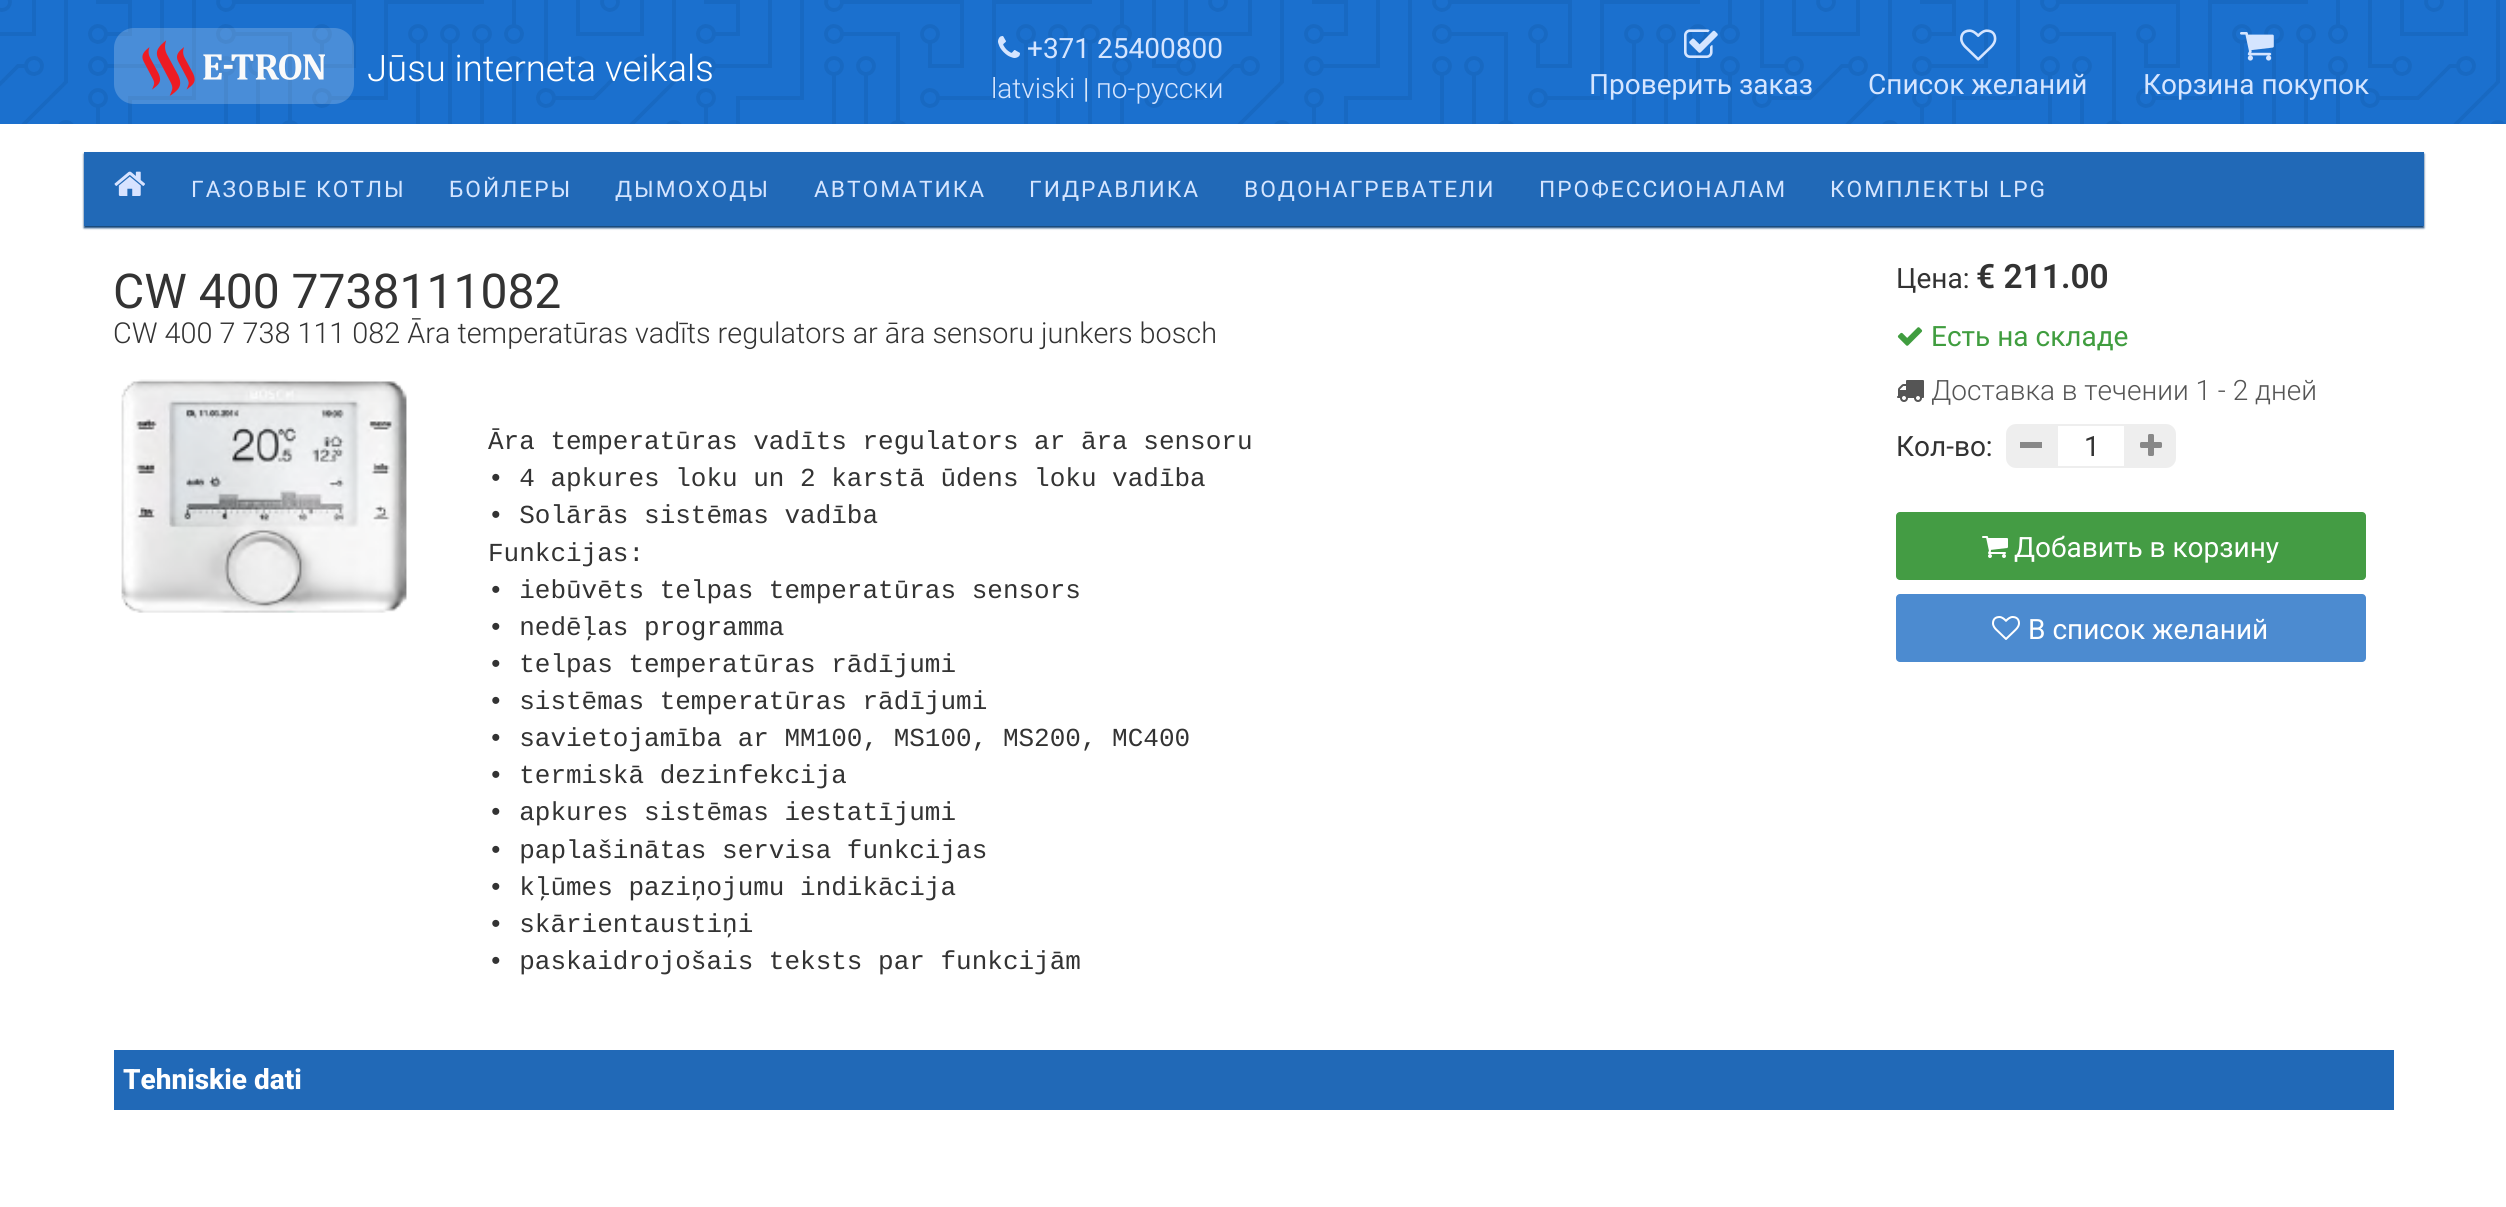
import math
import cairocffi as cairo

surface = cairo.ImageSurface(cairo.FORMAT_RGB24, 2506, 1207)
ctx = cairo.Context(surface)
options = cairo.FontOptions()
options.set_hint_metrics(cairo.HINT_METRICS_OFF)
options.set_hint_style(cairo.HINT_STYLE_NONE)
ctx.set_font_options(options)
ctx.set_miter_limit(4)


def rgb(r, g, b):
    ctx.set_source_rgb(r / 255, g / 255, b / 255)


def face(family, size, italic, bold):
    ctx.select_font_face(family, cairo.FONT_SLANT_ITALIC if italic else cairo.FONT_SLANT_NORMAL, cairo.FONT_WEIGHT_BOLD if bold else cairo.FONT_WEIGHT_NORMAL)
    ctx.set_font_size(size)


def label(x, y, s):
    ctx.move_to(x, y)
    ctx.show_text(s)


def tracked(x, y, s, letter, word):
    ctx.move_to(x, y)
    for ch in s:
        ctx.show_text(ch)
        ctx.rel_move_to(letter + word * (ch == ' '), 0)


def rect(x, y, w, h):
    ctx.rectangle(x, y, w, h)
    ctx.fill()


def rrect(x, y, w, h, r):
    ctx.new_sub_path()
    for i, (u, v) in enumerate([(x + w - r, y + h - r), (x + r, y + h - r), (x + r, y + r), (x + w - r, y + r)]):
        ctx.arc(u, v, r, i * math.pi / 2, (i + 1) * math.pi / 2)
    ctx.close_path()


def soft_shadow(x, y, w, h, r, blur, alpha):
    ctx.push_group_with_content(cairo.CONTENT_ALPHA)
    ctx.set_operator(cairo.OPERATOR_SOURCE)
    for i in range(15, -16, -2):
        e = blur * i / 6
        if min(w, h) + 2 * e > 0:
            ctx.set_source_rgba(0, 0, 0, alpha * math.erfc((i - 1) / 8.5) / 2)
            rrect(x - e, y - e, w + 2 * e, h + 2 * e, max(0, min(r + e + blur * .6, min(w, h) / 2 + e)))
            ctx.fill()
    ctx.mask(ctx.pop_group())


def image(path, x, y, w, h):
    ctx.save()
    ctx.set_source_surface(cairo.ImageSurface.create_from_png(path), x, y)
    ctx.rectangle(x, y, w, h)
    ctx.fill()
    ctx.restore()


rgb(255, 255, 255)
ctx.paint()
rgb(27, 112, 206)
rect(0, 0, 2506, 124)
image('image0.png', 0, 0, 2505, 124)
ctx.set_source_rgba(1, 1, 1, 0.2)
rrect(114, 28, 240, 76, 20)
ctx.fill()
image('image1.png', 142, 40, 183, 56)
face('Roboto Light', 36.5, 0, 0)
rgb(255, 255, 255)
label(367, 81, 'Jūsu interneta veikals')
image('image2.png', 998, 36, 22, 22)
face('Roboto', 28, 0, 0)
rgb(213, 229, 255)
label(1027, 58, '+371 25400800')
face('Roboto Light', 28, 0, 0)
label(991, 98, 'latviski')
rgb(255, 255, 255)
label(1083, 98, '|')
rgb(213, 229, 255)
label(1096, 98, 'по-русски')
image('image3.png', 1684, 29, 34, 29)
face('Roboto', 28, 0, 0)
label(1589, 94, 'Проверить заказ')
image('image4.png', 1960, 29, 37, 32)
label(1868, 94, 'Список желаний')
image('image5.png', 2240, 32, 34, 29)
label(2143, 94, 'Корзина покупок')
rgb(11, 62, 115)
soft_shadow(84, 154, 2340, 74, 0, 1, 1)
rgb(33, 105, 183)
rect(84, 152, 2340, 74)
image('image6.png', 114, 171, 31, 25)
face('Roboto', 22.75, 0, 0)
rgb(213, 229, 255)
tracked(191, 197, 'ГАЗОВЫЕ КОТЛЫ', 2, 0)
tracked(449, 197, 'БОЙЛЕРЫ', 2, 0)
tracked(615, 197, 'ДЫМОХОДЫ', 2, 0)
tracked(814, 197, 'АВТОМАТИКА', 2, 0)
tracked(1029, 197, 'ГИДРАВЛИКА', 2, 0)
tracked(1244, 197, 'ВОДОНАГРЕВАТЕЛИ', 2, 0)
tracked(1539, 197, 'ПРОФЕССИОНАЛАМ', 2, 0)
tracked(1830, 197, 'КОМПЛЕКТЫ LPG', 2, 0)
face('Roboto', 48, 0, 0)
rgb(51, 51, 51)
label(113, 308, 'CW 400 7738111082')
face('Roboto Light', 28.8, 0, 0)
label(113, 343, 'CW 400 7 738 111 082 Āra temperatūras vadīts regulators ar āra sensoru junkers bosch')
image('image7.png', 121, 379, 286, 234)
face('Liberation Mono', 26, 0, 0)
label(488, 449, 'Āra temperatūras vadīts regulators ar āra sensoru')
label(488, 486, '• 4 apkures loku un 2 karstā ūdens loku vadība')
label(488, 523, '• Solārās sistēmas vadība')
label(488, 561, 'Funkcijas:')
label(488, 598, '• iebūvēts telpas temperatūras sensors')
label(488, 635, '• nedēļas programma')
label(488, 672, '• telpas temperatūras rādījumi')
label(488, 709, '• sistēmas temperatūras rādījumi')
label(488, 746, '• savietojamība ar MM100, MS100, MS200, MC400')
label(488, 783, '• termiskā dezinfekcija')
label(488, 820, '• apkures sistēmas iestatījumi')
label(488, 858, '• paplašinātas servisa funkcijas')
label(488, 895, '• kļūmes paziņojumu indikācija')
label(488, 932, '• skārientaustiņi')
label(488, 969, '• paskaidrojošais teksts par funkcijām')
face('Roboto', 28, 0, 0)
label(1896, 288, 'Цена:')
face('Roboto SemiBold', 33.5, 0, 0)
label(1976, 288, '€ 211.00')
image('image8.png', 1897, 327, 26, 19)
face('Roboto', 28, 0, 0)
rgb(64, 157, 63)
label(1931, 346, 'Есть на складе')
image('image9.png', 1897, 380, 27, 22)
face('Roboto Light', 28, 0, 0)
rgb(85, 85, 85)
label(1931, 400, 'Доставка в течении 1 - 2 дней')
face('Roboto', 28, 0, 0)
rgb(51, 51, 51)
label(1896, 456, 'Кол-во:')
rgb(238, 238, 238)
ctx.new_path()
ctx.move_to(2016, 424)
ctx.line_to(2056, 424)
ctx.line_to(2056, 468)
ctx.line_to(2016, 468)
ctx.curve_to(2010.5, 468, 2006, 463.5, 2006, 458)
ctx.line_to(2006, 434)
ctx.curve_to(2006, 428.5, 2010.5, 424, 2016, 424)
ctx.close_path()
ctx.fill()
rgb(136, 136, 136)
rect(2020, 442, 22, 6)
ctx.rectangle(2057, 425, 68, 42)
rgb(238, 238, 238)
ctx.stroke()
rgb(51, 51, 51)
label(2084, 456, '1')
rgb(238, 238, 238)
ctx.new_path()
ctx.move_to(2126, 424)
ctx.line_to(2166, 424)
ctx.curve_to(2171.5, 424, 2176, 428.5, 2176, 434)
ctx.line_to(2176, 458)
ctx.curve_to(2176, 463.5, 2171.5, 468, 2166, 468)
ctx.line_to(2126, 468)
ctx.close_path()
ctx.fill()
image('image10.png', 2140, 434, 22, 22)
rgb(68, 156, 68)
rrect(1896, 512, 470, 68, 4)
ctx.fill()
image('image11.png', 1982, 536, 26, 22)
rgb(255, 255, 255)
label(2014, 557, 'Добавить в корзину')
rgb(76, 139, 208)
rrect(1896, 594, 470, 68, 4)
ctx.fill()
image('image12.png', 1992, 616, 28, 24)
rgb(255, 255, 255)
label(2028, 639, 'В список желаний')
rgb(33, 105, 183)
rect(114, 1050, 2280, 60)
face('Roboto ExtraBold', 28, 0, 0)
rgb(255, 255, 255)
label(123, 1089, 'Tehniskie dati')
surface.write_to_png('render.png')
